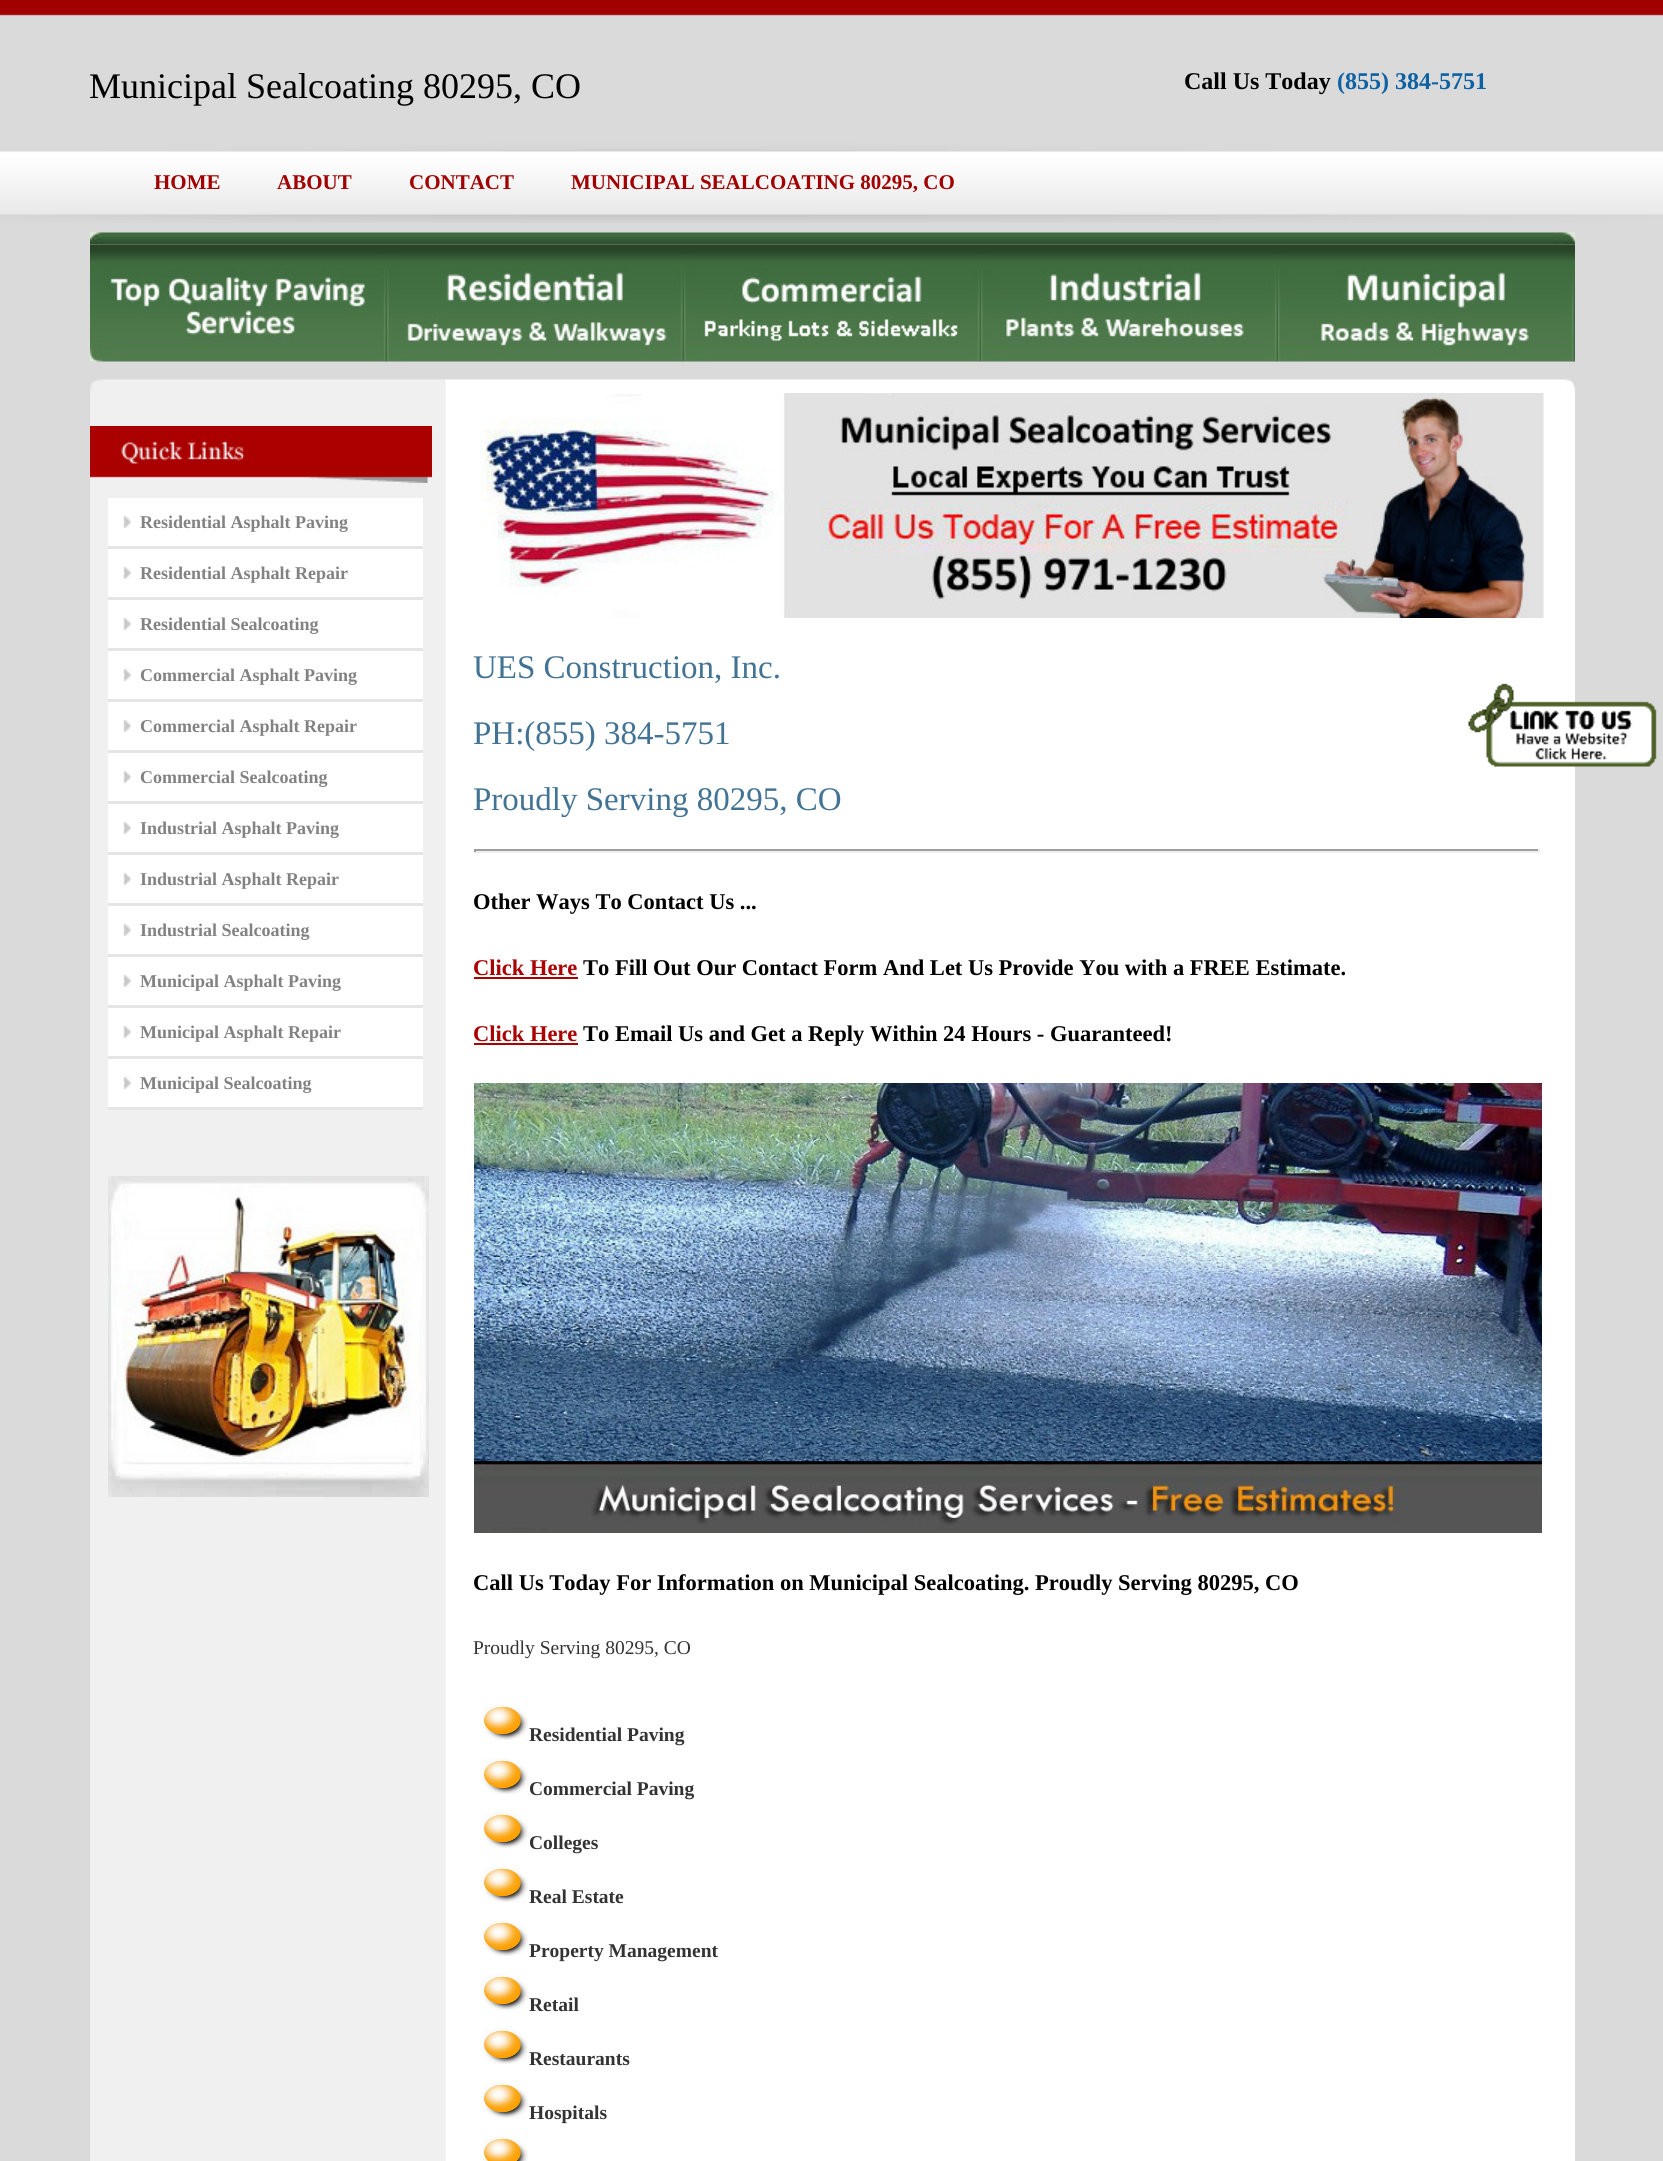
import math
import cairocffi as cairo

surface = cairo.ImageSurface(cairo.FORMAT_RGB24, 1663, 2161)
ctx = cairo.Context(surface)
options = cairo.FontOptions()
options.set_hint_metrics(cairo.HINT_METRICS_OFF)
options.set_hint_style(cairo.HINT_STYLE_NONE)
ctx.set_font_options(options)
ctx.set_miter_limit(4)


def rgb(r, g, b):
    ctx.set_source_rgb(r / 255, g / 255, b / 255)


def face(family, size, italic, bold):
    ctx.select_font_face(family, cairo.FONT_SLANT_ITALIC if italic else cairo.FONT_SLANT_NORMAL, cairo.FONT_WEIGHT_BOLD if bold else cairo.FONT_WEIGHT_NORMAL)
    ctx.set_font_size(size)


def label(x, y, s):
    ctx.move_to(x, y)
    ctx.show_text(s)


def rect(x, y, w, h):
    ctx.rectangle(x, y, w, h)
    ctx.fill()


def image(path, x, y, w, h):
    ctx.save()
    ctx.set_source_surface(cairo.ImageSurface.create_from_png(path), x, y)
    ctx.rectangle(x, y, w, h)
    ctx.fill()
    ctx.restore()


rgb(218, 218, 218)
ctx.paint()
image('image0.png', 0, 0, 1663, 223)
face('Liberation Serif', 36, 0, 0)
rgb(0, 0, 0)
label(89, 98, 'Municipal Sealcoating 80295, CO')
face('Liberation Serif', 24, 0, 1)
label(1184, 89, 'Call Us Today')
rgb(12, 97, 163)
label(1337, 89, '(855) 384-5751')
face('Liberation Serif', 21, 0, 1)
rgb(162, 0, 0)
label(154, 189, 'HOME')
label(277, 189, 'ABOUT')
label(409, 189, 'CONTACT')
label(571, 189, 'MUNICIPAL SEALCOATING 80295, CO')
image('image1.png', 90, 232, 1485, 13)
image('image2.png', 90, 244, 297, 118)
image('image3.png', 387, 244, 297, 118)
image('image4.png', 684, 244, 297, 118)
image('image5.png', 981, 244, 297, 118)
image('image6.png', 1278, 244, 297, 118)
image('image7.png', 90, 379, 1485, 14)
image('image8.png', 90, 393, 1485, 1768)
image('image9.png', 90, 426, 342, 57)
rgb(255, 255, 255)
rect(108, 498, 315, 48)
image('image10.png', 123, 516, 8, 12)
rgb(229, 229, 229)
rect(108, 546, 315, 3)
face('Liberation Serif', 18, 0, 1)
rgb(130, 130, 130)
label(140, 528, 'Residential Asphalt Paving')
rgb(255, 255, 255)
rect(108, 549, 315, 48)
image('image10.png', 123, 567, 8, 12)
rgb(229, 229, 229)
rect(108, 597, 315, 3)
rgb(130, 130, 130)
label(140, 579, 'Residential Asphalt Repair')
rgb(255, 255, 255)
rect(108, 600, 315, 48)
image('image10.png', 123, 618, 8, 12)
rgb(229, 229, 229)
rect(108, 648, 315, 3)
rgb(130, 130, 130)
label(140, 630, 'Residential Sealcoating')
rgb(255, 255, 255)
rect(108, 651, 315, 48)
image('image10.png', 123, 669, 8, 12)
rgb(229, 229, 229)
rect(108, 699, 315, 3)
rgb(130, 130, 130)
label(140, 681, 'Commercial Asphalt Paving')
rgb(255, 255, 255)
rect(108, 702, 315, 48)
image('image10.png', 123, 720, 8, 12)
rgb(229, 229, 229)
rect(108, 750, 315, 3)
rgb(130, 130, 130)
label(140, 732, 'Commercial Asphalt Repair')
rgb(255, 255, 255)
rect(108, 753, 315, 48)
image('image10.png', 123, 771, 8, 12)
rgb(229, 229, 229)
rect(108, 801, 315, 3)
rgb(130, 130, 130)
label(140, 783, 'Commercial Sealcoating')
rgb(255, 255, 255)
rect(108, 804, 315, 48)
image('image10.png', 123, 822, 8, 12)
rgb(229, 229, 229)
rect(108, 852, 315, 3)
rgb(130, 130, 130)
label(140, 834, 'Industrial Asphalt Paving')
rgb(255, 255, 255)
rect(108, 855, 315, 48)
image('image10.png', 123, 873, 8, 12)
rgb(229, 229, 229)
rect(108, 903, 315, 3)
rgb(130, 130, 130)
label(140, 885, 'Industrial Asphalt Repair')
rgb(255, 255, 255)
rect(108, 906, 315, 48)
image('image10.png', 123, 924, 8, 12)
rgb(229, 229, 229)
rect(108, 954, 315, 3)
rgb(130, 130, 130)
label(140, 936, 'Industrial Sealcoating')
rgb(255, 255, 255)
rect(108, 957, 315, 48)
image('image10.png', 123, 975, 8, 12)
rgb(229, 229, 229)
rect(108, 1005, 315, 3)
rgb(130, 130, 130)
label(140, 987, 'Municipal Asphalt Paving')
rgb(255, 255, 255)
rect(108, 1008, 315, 48)
image('image10.png', 123, 1026, 8, 12)
rgb(229, 229, 229)
rect(108, 1056, 315, 3)
rgb(130, 130, 130)
label(140, 1038, 'Municipal Asphalt Repair')
rgb(255, 255, 255)
rect(108, 1059, 315, 48)
image('image10.png', 123, 1077, 8, 12)
rgb(229, 229, 229)
rect(108, 1107, 315, 3)
rgb(130, 130, 130)
label(140, 1089, 'Municipal Sealcoating')
image('image11.png', 108, 1176, 321, 321)
image('image12.png', 480, 393, 1064, 225)
face('Liberation Serif', 33, 0, 0)
rgb(66, 115, 149)
label(473, 678, 'UES Construction, Inc.')
label(473, 744, 'PH:(855) 384-5751')
label(473, 810, 'Proudly Serving 80295, CO')
rgb(159, 159, 159)
rect(474, 849, 1065, 2)
rgb(238, 238, 238)
rect(1538, 849, 2, 3)
rect(474, 851, 1065, 2)
rgb(159, 159, 159)
rect(474, 849, 2, 3)
face('Liberation Serif', 22.5, 0, 1)
rgb(0, 0, 0)
label(473, 909, 'Other Ways To Contact Us ...')
rgb(170, 0, 0)
label(473, 975, 'Click Here')
rect(474, 977, 104, 2)
rgb(0, 0, 0)
label(583, 975, 'To Fill Out Our Contact Form And Let Us Provide You with a FREE Estimate.')
rgb(170, 0, 0)
label(473, 1041, 'Click Here')
rect(474, 1043, 104, 2)
rgb(0, 0, 0)
label(583, 1041, 'To Email Us and Get a Reply Within 24 Hours - Guaranteed!')
image('image13.png', 474, 1083, 1068, 450)
label(473, 1590, 'Call Us Today For Information on Municipal Sealcoating. Proudly Serving 80295, CO')
face('Liberation Serif', 19.5, 0, 0)
rgb(51, 51, 51)
label(473, 1654, 'Proudly Serving 80295, CO')
image('image14.png', 482, 1704, 46, 36)
face('Liberation Serif', 19.5, 0, 1)
label(529, 1741, 'Residential Paving')
image('image14.png', 482, 1758, 46, 36)
label(529, 1795, 'Commercial Paving')
image('image14.png', 482, 1812, 46, 36)
label(529, 1849, 'Colleges')
image('image14.png', 482, 1866, 46, 36)
label(529, 1903, 'Real Estate')
image('image14.png', 482, 1920, 46, 36)
label(529, 1957, 'Property Management')
image('image14.png', 482, 1974, 46, 36)
label(529, 2011, 'Retail')
image('image14.png', 482, 2028, 46, 36)
label(529, 2065, 'Restaurants')
image('image14.png', 482, 2082, 46, 36)
label(529, 2119, 'Hospitals')
image('image15.png', 482, 2136, 46, 25)
image('image16.png', 1468, 683, 189, 84)
surface.write_to_png('render.png')
